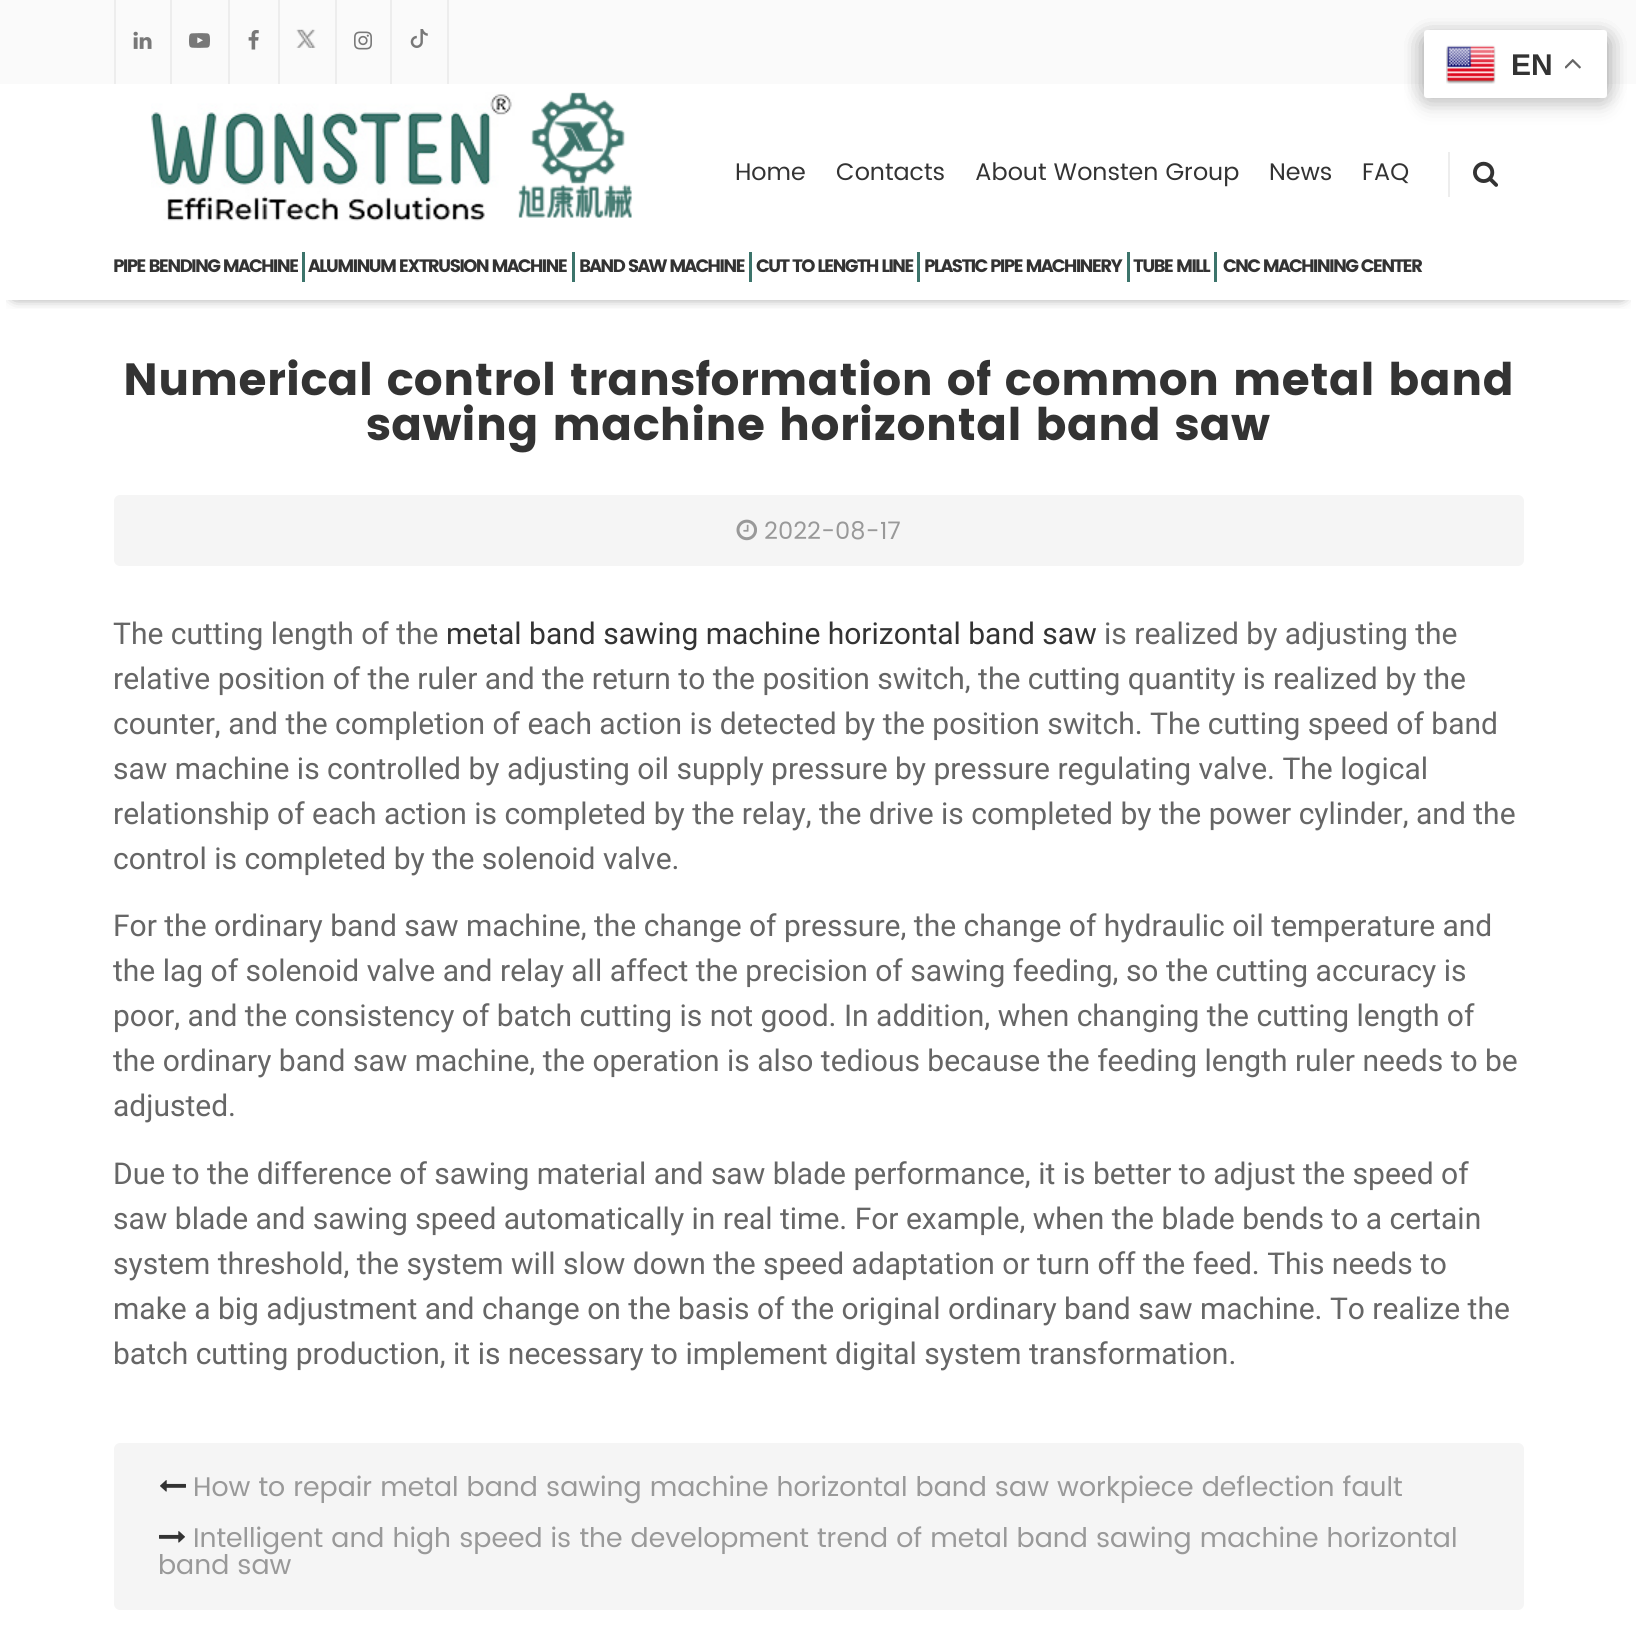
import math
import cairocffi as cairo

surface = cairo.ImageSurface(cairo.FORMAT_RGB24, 1636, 1631)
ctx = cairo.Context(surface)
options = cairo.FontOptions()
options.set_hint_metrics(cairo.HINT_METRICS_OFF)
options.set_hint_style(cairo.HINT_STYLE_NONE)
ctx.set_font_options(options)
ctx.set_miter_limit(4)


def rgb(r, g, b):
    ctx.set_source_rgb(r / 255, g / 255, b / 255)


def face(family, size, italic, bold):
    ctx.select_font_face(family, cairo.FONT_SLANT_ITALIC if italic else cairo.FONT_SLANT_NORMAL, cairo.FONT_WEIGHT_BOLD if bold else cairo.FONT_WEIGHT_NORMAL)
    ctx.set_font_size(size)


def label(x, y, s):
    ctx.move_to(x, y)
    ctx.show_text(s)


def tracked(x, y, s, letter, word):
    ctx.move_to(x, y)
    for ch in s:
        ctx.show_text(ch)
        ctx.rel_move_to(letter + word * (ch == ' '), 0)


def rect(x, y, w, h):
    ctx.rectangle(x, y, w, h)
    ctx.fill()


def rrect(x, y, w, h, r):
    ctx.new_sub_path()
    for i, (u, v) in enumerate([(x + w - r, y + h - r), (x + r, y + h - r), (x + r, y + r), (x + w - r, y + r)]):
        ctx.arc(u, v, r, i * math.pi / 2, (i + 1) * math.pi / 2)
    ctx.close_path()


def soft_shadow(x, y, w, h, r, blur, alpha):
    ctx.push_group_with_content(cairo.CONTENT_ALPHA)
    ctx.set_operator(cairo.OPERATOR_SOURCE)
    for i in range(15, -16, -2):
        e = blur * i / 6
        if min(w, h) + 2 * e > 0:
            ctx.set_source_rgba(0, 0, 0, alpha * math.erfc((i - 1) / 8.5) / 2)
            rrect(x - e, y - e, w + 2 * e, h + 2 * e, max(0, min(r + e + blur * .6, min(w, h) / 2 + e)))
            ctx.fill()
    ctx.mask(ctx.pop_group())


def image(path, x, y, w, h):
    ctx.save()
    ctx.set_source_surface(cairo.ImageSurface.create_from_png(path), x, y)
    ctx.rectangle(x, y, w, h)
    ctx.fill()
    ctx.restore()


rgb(255, 255, 255)
ctx.paint()
ctx.save()
ctx.rectangle(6, 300, 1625, 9)
ctx.clip()
rgb(36, 36, 36)
soft_shadow(15, 24, 1607, 270, 0, 7.5, 1)
ctx.restore()
rgb(250, 250, 250)
rect(0, 0, 1636, 84)
rgb(0, 0, 0)
soft_shadow(1424, 38, 183, 55, 3, 11, 0.15)
soft_shadow(1424, 38, 183, 67, 3, 11, 0.15)
soft_shadow(1424, 38, 183, 55, 3, 11, 0.15)
rgb(255, 255, 255)
rrect(1424, 30, 183, 68, 3)
ctx.fill()
image('image0.png', 1446, 45, 50, 39)
face('Liberation Sans', 30, 0, 1)
rgb(51, 51, 51)
label(1511, 75, 'EN')
image('image1.png', 1565, 59, 16, 10)
rgb(237, 237, 237)
rect(170, 0, 2, 84)
rect(114, 0, 2, 84)
image('image2.png', 133, 31, 19, 18)
rect(228, 0, 2, 84)
image('image3.png', 189, 33, 21, 15)
rect(278, 0, 2, 84)
image('image4.png', 248, 30, 11, 20)
rect(335, 0, 2, 84)
image('image5.png', 296, 29, 20, 19)
rect(390, 0, 2, 84)
image('image6.png', 354, 31, 18, 19)
rect(447, 0, 2, 84)
image('image7.png', 410, 29, 18, 19)
image('image8.png', 151, 92, 481, 129)
face('Poppins', 24, 0, 0)
rgb(51, 51, 51)
label(735, 180, 'Home')
label(836, 180, 'Contacts')
label(975, 180, 'About Wonsten Group')
label(1269, 180, 'News')
label(1362, 180, 'FAQ')
rgb(237, 237, 237)
rect(1448, 152, 2, 45)
image('image9.png', 1473, 161, 25, 26)
face('Poppins', 18, 0, 1)
rgb(51, 51, 51)
tracked(113, 272, 'PIPE BENDING MACHINE', -1.8, 0)
rgb(60, 116, 107)
rect(302, 252, 3, 30)
rgb(51, 51, 51)
tracked(308, 272, 'ALUMINUM EXTRUSION MACHINE', -1.8, 0)
rgb(60, 116, 107)
rect(572, 252, 3, 30)
rgb(51, 51, 51)
tracked(579, 272, 'BAND SAW MACHINE', -1.8, 0)
rgb(60, 116, 107)
rect(749, 252, 3, 30)
rgb(51, 51, 51)
tracked(756, 272, 'CUT TO LENGTH LINE', -1.8, 0)
rgb(60, 116, 107)
rect(917, 252, 3, 30)
rgb(51, 51, 51)
tracked(924, 272, 'PLASTIC PIPE MACHINERY', -1.8, 0)
rgb(60, 116, 107)
rect(1127, 252, 3, 30)
rgb(51, 51, 51)
tracked(1133, 272, 'TUBE MILL', -1.8, 0)
rgb(60, 116, 107)
rect(1214, 252, 3, 30)
rgb(51, 51, 51)
tracked(1223, 272, 'CNC MACHINING CENTER', -1.8, 0)
face('Poppins', 45, 0, 1)
label(123, 395, 'Numerical control transformation of common metal band')
label(366, 440, 'sawing machine horizontal band saw')
rgb(245, 245, 245)
rrect(114, 495, 1410, 71, 6)
ctx.fill()
image('image10.png', 736, 519, 21, 22)
face('Poppins', 24, 0, 0)
rgb(153, 153, 153)
label(764, 539, '2022-08-17')
face('Roboto', 30, 0, 0)
rgb(102, 102, 102)
label(113, 644, 'The cutting length of the')
rgb(51, 51, 51)
label(446, 644, 'metal band sawing machine horizontal band saw')
rgb(102, 102, 102)
label(1104, 644, 'is realized by adjusting the')
label(113, 689, 'relative position of the ruler and the return to the position switch, the cutting quantity is realized by the')
label(113, 734, 'counter, and the completion of each action is detected by the position switch. The cutting speed of band')
label(113, 779, 'saw machine is controlled by adjusting oil supply pressure by pressure regulating valve. The logical')
label(113, 824, 'relationship of each action is completed by the relay, the drive is completed by the power cylinder, and the')
label(113, 869, 'control is completed by the solenoid valve.')
label(113, 936, 'For the ordinary band saw machine, the change of pressure, the change of hydraulic oil temperature and')
label(113, 981, 'the lag of solenoid valve and relay all affect the precision of sawing feeding, so the cutting accuracy is')
label(113, 1026, 'poor, and the consistency of batch cutting is not good. In addition, when changing the cutting length of')
label(113, 1071, 'the ordinary band saw machine, the operation is also tedious because the feeding length ruler needs to be')
label(113, 1116, 'adjusted.')
label(113, 1184, 'Due to the difference of sawing material and saw blade performance, it is better to adjust the speed of')
label(113, 1229, 'saw blade and sawing speed automatically in real time. For example, when the blade bends to a certain')
label(113, 1274, 'system threshold, the system will slow down the speed adaptation or turn off the feed. This needs to')
label(113, 1319, 'make a big adjustment and change on the basis of the original ordinary band saw machine. To realize the')
label(113, 1364, 'batch cutting production, it is necessary to implement digital system transformation.')
rgb(245, 245, 245)
rrect(114, 1443, 1410, 167, 6)
ctx.fill()
image('image11.png', 160, 1480, 26, 12)
face('Poppins', 27, 0, 0)
rgb(153, 153, 153)
label(193, 1496, 'How to repair metal band sawing machine horizontal band saw workpiece deflection fault')
image('image12.png', 159, 1531, 26, 12)
label(193, 1547, 'Intelligent and high speed is the development trend of metal band sawing machine horizontal')
label(158, 1574, 'band saw')
surface.write_to_png('render.png')
